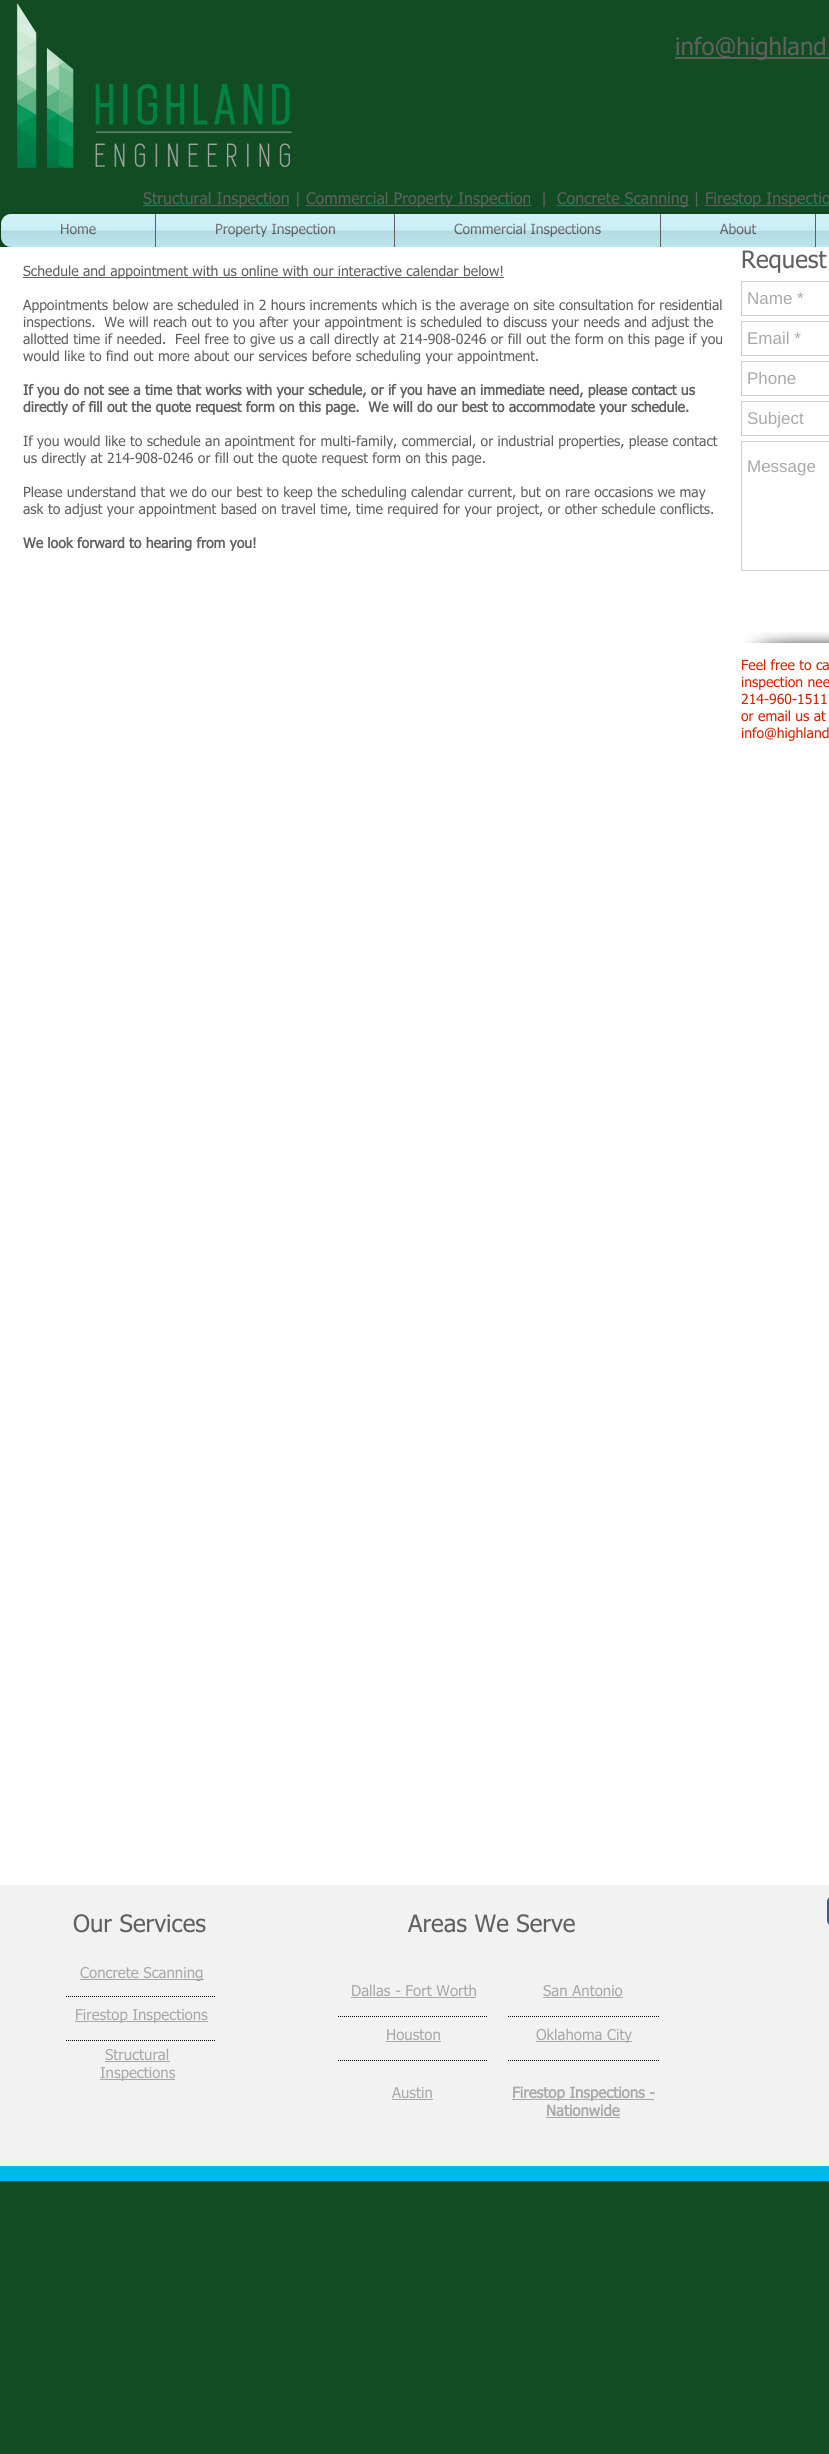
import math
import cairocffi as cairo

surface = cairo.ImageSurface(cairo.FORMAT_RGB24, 829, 2454)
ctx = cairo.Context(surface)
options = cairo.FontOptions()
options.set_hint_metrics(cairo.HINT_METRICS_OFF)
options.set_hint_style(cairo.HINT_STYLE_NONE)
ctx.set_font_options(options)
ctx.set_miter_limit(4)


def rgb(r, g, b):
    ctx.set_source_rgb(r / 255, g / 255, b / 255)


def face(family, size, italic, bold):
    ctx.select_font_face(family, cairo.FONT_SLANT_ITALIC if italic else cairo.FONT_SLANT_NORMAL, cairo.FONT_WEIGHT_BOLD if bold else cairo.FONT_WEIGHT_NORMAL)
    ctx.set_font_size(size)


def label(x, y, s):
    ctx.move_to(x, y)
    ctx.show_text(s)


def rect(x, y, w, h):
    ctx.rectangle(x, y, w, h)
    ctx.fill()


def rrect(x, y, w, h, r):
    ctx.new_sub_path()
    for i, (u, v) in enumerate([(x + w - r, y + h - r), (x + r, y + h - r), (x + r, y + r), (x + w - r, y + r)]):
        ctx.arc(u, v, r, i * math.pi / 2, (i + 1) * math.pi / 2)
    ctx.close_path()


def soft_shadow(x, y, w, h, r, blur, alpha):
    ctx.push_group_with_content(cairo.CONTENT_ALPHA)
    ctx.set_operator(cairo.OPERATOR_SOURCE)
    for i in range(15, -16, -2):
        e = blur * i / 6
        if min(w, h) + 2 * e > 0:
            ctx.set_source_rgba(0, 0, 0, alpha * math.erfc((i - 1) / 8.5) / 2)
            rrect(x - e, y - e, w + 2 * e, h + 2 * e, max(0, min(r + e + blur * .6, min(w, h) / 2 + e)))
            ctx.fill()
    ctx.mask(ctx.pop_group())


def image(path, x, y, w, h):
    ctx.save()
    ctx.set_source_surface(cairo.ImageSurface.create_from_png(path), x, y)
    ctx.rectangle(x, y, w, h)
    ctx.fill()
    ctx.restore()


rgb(17, 76, 34)
ctx.paint()
image('image0.png', 16, 3, 276, 165)
rgb(96, 96, 96)
rect(675, 57, 154, 2)
face('tahoma', 24, 0, 0)
label(675, 55, 'info@highland')
rect(143, 205, 146, 1)
face('tahoma', 16, 0, 0)
label(143, 204, 'Structural Inspection |')
rect(306, 205, 225, 1)
label(306, 204, 'Commercial Property Inspection')
label(541, 204, '|')
rect(557, 205, 132, 1)
label(557, 204, 'Concrete Scanning |')
rect(705, 205, 124, 1)
label(705, 204, 'Firestop Inspectio')
rgb(0, 0, 0)
soft_shadow(1, 215, 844, 33, 10, 2, 0.6)
image('image1.png', 1, 214, 10, 33)
rgb(194, 236, 245)
ctx.new_path()
ctx.move_to(11, 214)
ctx.line_to(155, 214)
ctx.line_to(155, 247)
ctx.line_to(11, 247)
ctx.curve_to(5.5, 247, 1, 242.5, 1, 237)
ctx.line_to(1, 224)
ctx.curve_to(1, 218.5, 5.5, 214, 11, 214)
ctx.close_path()
ctx.fill()
face('tahoma', 14, 0, 0)
rgb(96, 96, 96)
label(60, 234, 'Home')
image('image2.png', 1, 214, 154, 33)
rgb(194, 236, 245)
rect(156, 214, 238, 33)
rgb(96, 96, 96)
rect(155, 214, 1, 33)
label(215, 234, 'Property Inspection')
image('image3.png', 156, 214, 238, 33)
rgb(194, 236, 245)
rect(395, 214, 265, 33)
rgb(96, 96, 96)
rect(394, 214, 1, 33)
label(454, 234, 'Commercial Inspections')
image('image4.png', 395, 214, 265, 33)
rgb(194, 236, 245)
rect(661, 214, 154, 33)
rgb(96, 96, 96)
rect(660, 214, 1, 33)
label(720, 234, 'About')
image('image5.png', 661, 214, 154, 33)
rgb(194, 236, 245)
rect(816, 214, 13, 33)
rgb(96, 96, 96)
rect(815, 214, 1, 33)
image('image6.png', 816, 214, 13, 33)
rgb(255, 255, 255)
rect(0, 247, 829, 1638)
face('tahoma', 24, 0, 0)
rgb(96, 96, 96)
label(741, 268, 'Request')
rect(23, 277, 481, 1)
face('tahoma', 14, 0, 0)
label(23, 276, 'Schedule and appointment with us online with our interactive calendar below!')
label(23, 310, 'Appointments below are scheduled in 2 hours increments which is the average on site consultation for residential')
label(23, 327, 'inspections.  We will reach out to you after your appointment is scheduled to discuss your needs and adjust the')
label(23, 344, 'allotted time if needed.  Feel free to give us a call directly at 214-908-0246 or fill out the form on this page if you')
label(23, 361, 'would like to find out more about our services before scheduling your appointment.')
face('tahoma', 14, 0, 1)
label(23, 395, 'If you do not see a time that works with your schedule, or if you have an immediate need, please contact us')
label(23, 412, 'directly of fill out the quote request form on this page.  We will do our best to accommodate your schedule.')
face('tahoma', 14, 0, 0)
label(23, 446, 'If you would like to schedule an apointment for multi-family, commercial, or industrial properties, please contact')
label(23, 463, 'us directly at 214-908-0246 or fill out the quote request form on this page.')
label(23, 497, 'Please understand that we do our best to keep the scheduling calendar current, but on rare occasions we may')
label(23, 514, 'ask to adjust your appointment based on travel time, time required for your project, or other schedule conflicts.')
face('tahoma', 14, 0, 1)
label(23, 548, 'We look forward to hearing from you!')
ctx.rectangle(741.5, 281.5, 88, 34)
rgb(207, 207, 207)
ctx.set_line_width(1)
ctx.stroke()
face('Liberation Sans', 17, 0, 0)
rgb(169, 169, 169)
label(747, 304, 'Name *')
ctx.rectangle(741.5, 321.5, 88, 34)
rgb(207, 207, 207)
ctx.stroke()
rgb(169, 169, 169)
label(747, 344, 'Email *')
ctx.rectangle(741.5, 361.5, 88, 34)
rgb(207, 207, 207)
ctx.stroke()
rgb(169, 169, 169)
label(747, 384, 'Phone')
ctx.rectangle(741.5, 401.5, 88, 34)
rgb(207, 207, 207)
ctx.stroke()
rgb(169, 169, 169)
label(747, 424, 'Subject')
ctx.rectangle(741.5, 441.5, 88, 129)
rgb(207, 207, 207)
ctx.stroke()
rgb(169, 169, 169)
label(747, 472, 'Message')
image('image7.png', 744, 632, 85, 11)
face('tahoma', 14, 0, 0)
rgb(211, 35, 0)
label(741, 670, 'Feel free to ca')
label(741, 687, 'inspection nee')
label(741, 704, '214-960-1511')
label(741, 721, 'or email us at')
label(741, 738, 'info@highland')
rgb(242, 242, 242)
rect(0, 1885, 829, 281)
face('tahoma', 24, 0, 0)
rgb(96, 96, 96)
label(73, 1932, 'Our Services')
label(408, 1932, 'Areas We Serve')
image('image8.png', 827, 1897, 2, 28)
rgb(168, 168, 168)
rect(80, 1979, 124, 1)
face('tahoma', 15, 0, 0)
rgb(169, 169, 169)
label(80, 1978, 'Concrete Scanning')
ctx.new_path()
ctx.move_to(66, 1996.5)
ctx.line_to(216, 1996.5)
rgb(0, 0, 0)
ctx.set_dash([1, 1])
ctx.stroke()
rgb(169, 169, 169)
label(351, 1996, 'Dallas - Fort Worth')
rgb(168, 168, 168)
rect(351, 1997, 125, 1)
rgb(169, 169, 169)
label(543, 1996, 'San Antonio')
rgb(168, 168, 168)
rect(543, 1997, 80, 1)
rect(75, 2021, 133, 1)
rgb(169, 169, 169)
label(75, 2020, 'Firestop Inspections')
ctx.new_path()
ctx.move_to(338, 2016.5)
ctx.line_to(488, 2016.5)
rgb(0, 0, 0)
ctx.stroke()
ctx.new_path()
ctx.move_to(508, 2016.5)
ctx.line_to(660, 2016.5)
ctx.stroke()
ctx.new_path()
ctx.move_to(66, 2040.5)
ctx.line_to(216, 2040.5)
ctx.stroke()
rgb(169, 169, 169)
label(386, 2040, 'Houston')
rgb(168, 168, 168)
rect(386, 2041, 55, 1)
rect(536, 2041, 96, 1)
rgb(169, 169, 169)
label(536, 2040, 'Oklahoma City')
label(105, 2060, 'Structural')
rgb(168, 168, 168)
rect(105, 2061, 65, 1)
rect(100, 2079, 75, 1)
rgb(169, 169, 169)
label(100, 2078, 'Inspections')
ctx.new_path()
ctx.move_to(338, 2060.5)
ctx.line_to(488, 2060.5)
rgb(0, 0, 0)
ctx.stroke()
ctx.new_path()
ctx.move_to(508, 2060.5)
ctx.line_to(660, 2060.5)
ctx.stroke()
rgb(169, 169, 169)
label(392, 2098, 'Austin')
rgb(168, 168, 168)
rect(392, 2099, 41, 1)
rect(512, 2099, 142, 1)
face('tahoma', 15, 0, 1)
rgb(169, 169, 169)
label(512, 2098, 'Firestop Inspections -')
label(546, 2116, 'Nationwide')
rgb(168, 168, 168)
rect(546, 2117, 74, 1)
rgb(0, 185, 232)
rect(0, 2166, 829, 15)
surface.write_to_png('render.png')
